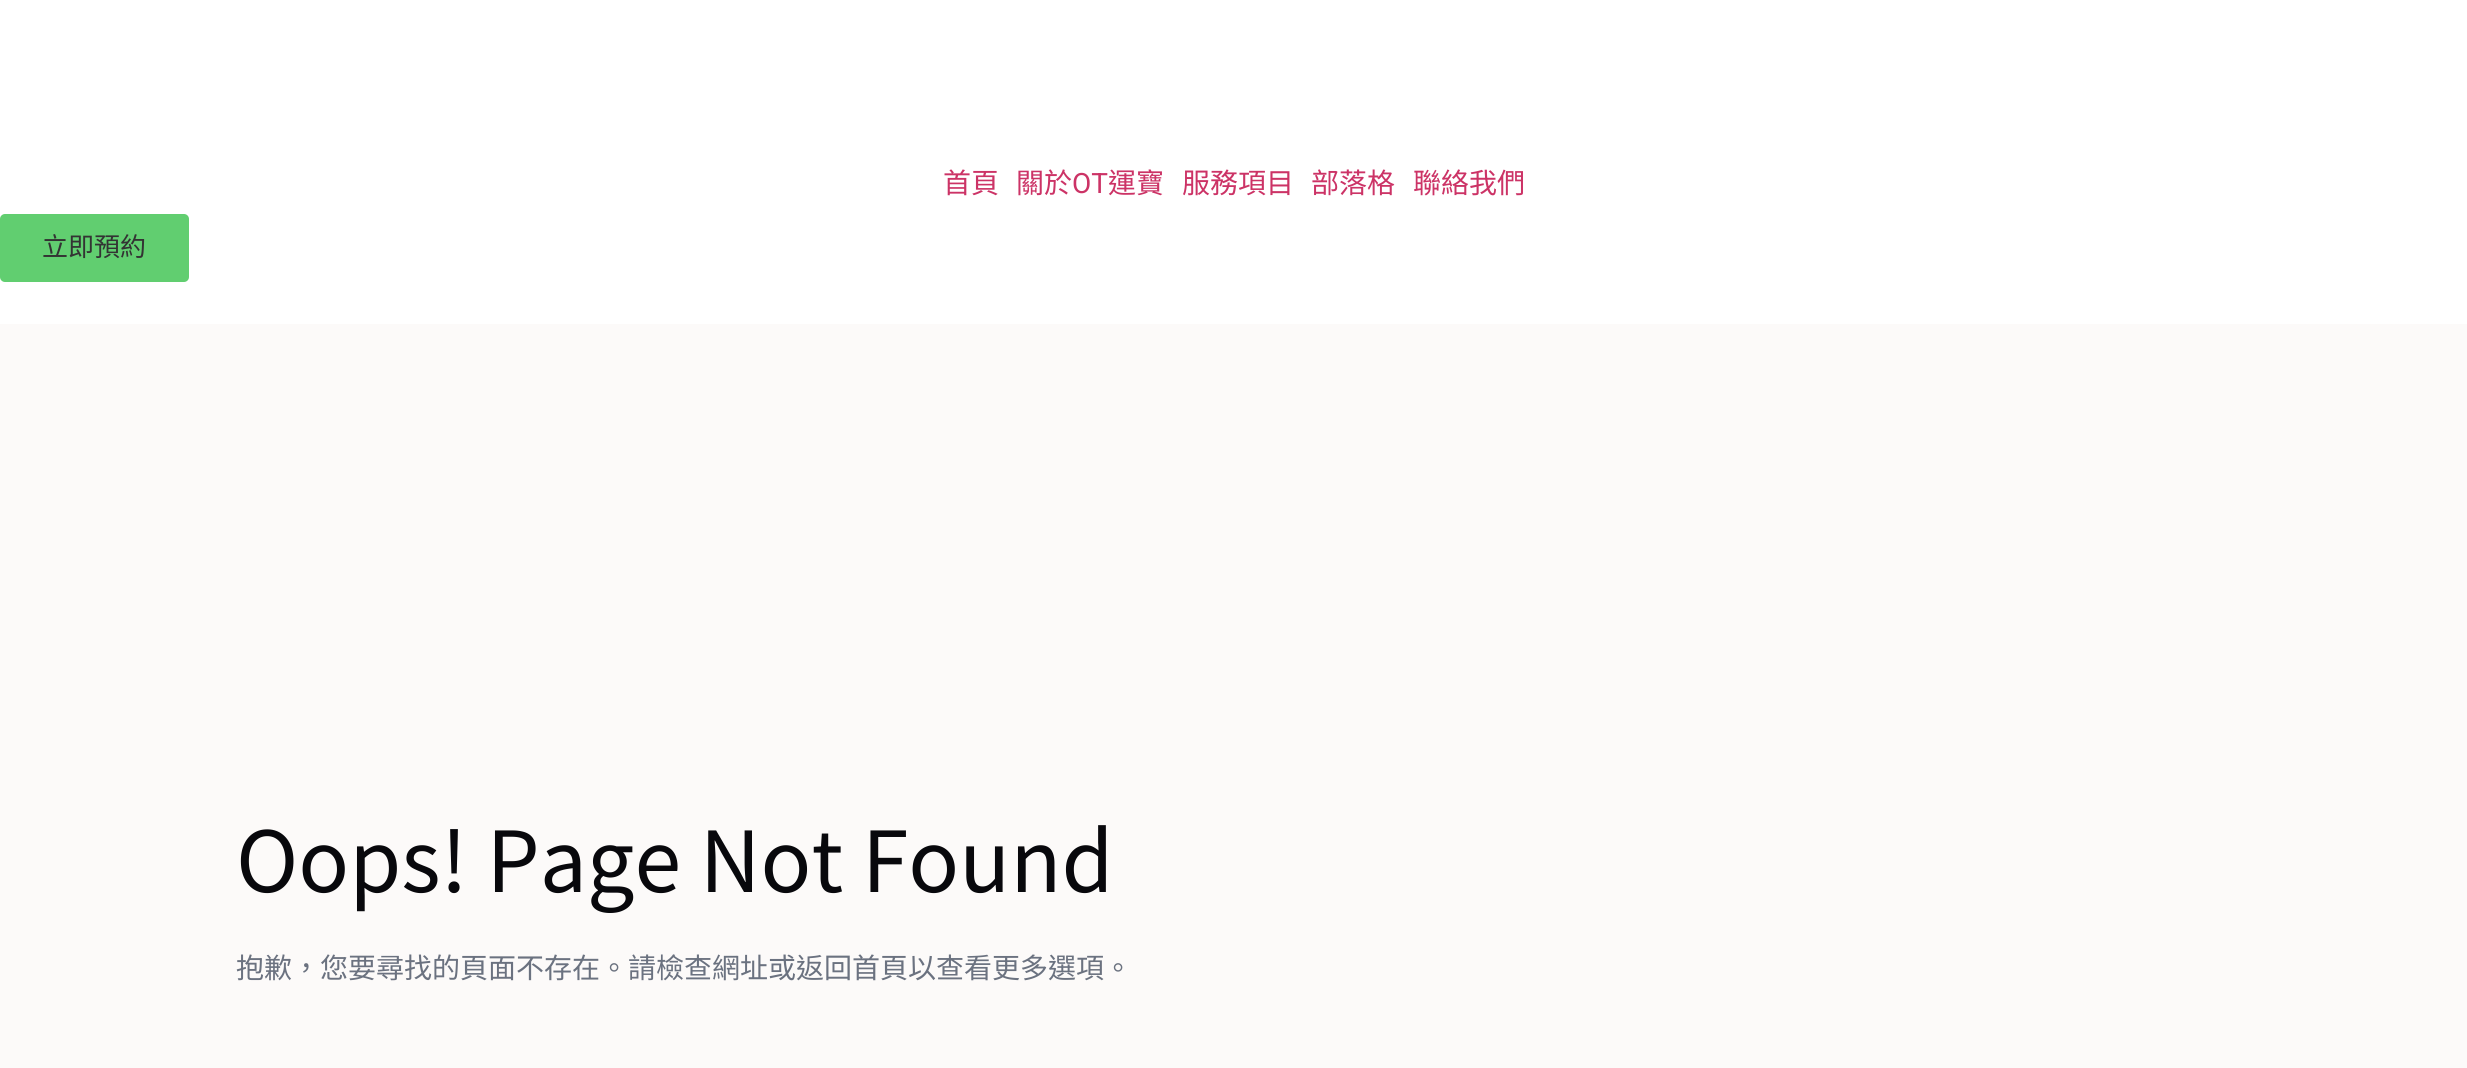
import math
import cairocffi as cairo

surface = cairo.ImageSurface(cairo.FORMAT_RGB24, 2467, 1068)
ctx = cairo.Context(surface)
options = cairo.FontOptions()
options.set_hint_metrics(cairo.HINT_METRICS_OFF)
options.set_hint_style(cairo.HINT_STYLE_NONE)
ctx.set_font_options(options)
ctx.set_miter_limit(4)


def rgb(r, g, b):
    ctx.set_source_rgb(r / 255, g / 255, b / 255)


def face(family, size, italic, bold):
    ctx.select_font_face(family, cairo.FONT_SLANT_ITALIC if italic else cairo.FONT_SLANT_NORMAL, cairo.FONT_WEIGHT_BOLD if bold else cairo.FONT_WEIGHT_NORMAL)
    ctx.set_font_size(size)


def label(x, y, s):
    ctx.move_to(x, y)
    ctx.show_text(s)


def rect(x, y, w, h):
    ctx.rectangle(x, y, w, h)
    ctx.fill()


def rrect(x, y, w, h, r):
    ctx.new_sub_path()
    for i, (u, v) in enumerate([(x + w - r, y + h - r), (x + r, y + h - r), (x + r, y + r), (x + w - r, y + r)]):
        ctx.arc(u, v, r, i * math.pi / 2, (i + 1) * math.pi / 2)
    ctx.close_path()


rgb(255, 255, 255)
ctx.paint()
face('Noto Sans CJK TC', 28, 0, 0)
rgb(204, 51, 102)
label(943, 193, '首頁')
label(1016, 193, '關於')
face('Roboto', 28, 0, 0)
label(1072, 193, 'OT')
face('Noto Sans CJK TC', 28, 0, 0)
label(1108, 193, '運寶')
label(1182, 193, '服務項目')
label(1311, 193, '部落格')
label(1413, 193, '聯絡我們')
rgb(97, 206, 112)
rrect(0, 214, 189, 68, 5)
ctx.fill()
face('Noto Sans CJK TC', 26, 0, 0)
rgb(51, 51, 51)
label(42, 256, '立即預約')
rgb(252, 250, 249)
rect(0, 324, 2467, 744)
face('Noto Sans HK', 84, 0, 0)
rgb(8, 8, 12)
label(236, 892, 'Oops! Page Not Found')
face('Noto Sans HK', 28, 0, 0)
rgb(107, 114, 128)
label(236, 978, '抱歉，您要尋找的頁面不存在。請檢查網址或返回首頁以查看更多選項。')
surface.write_to_png('render.png')
